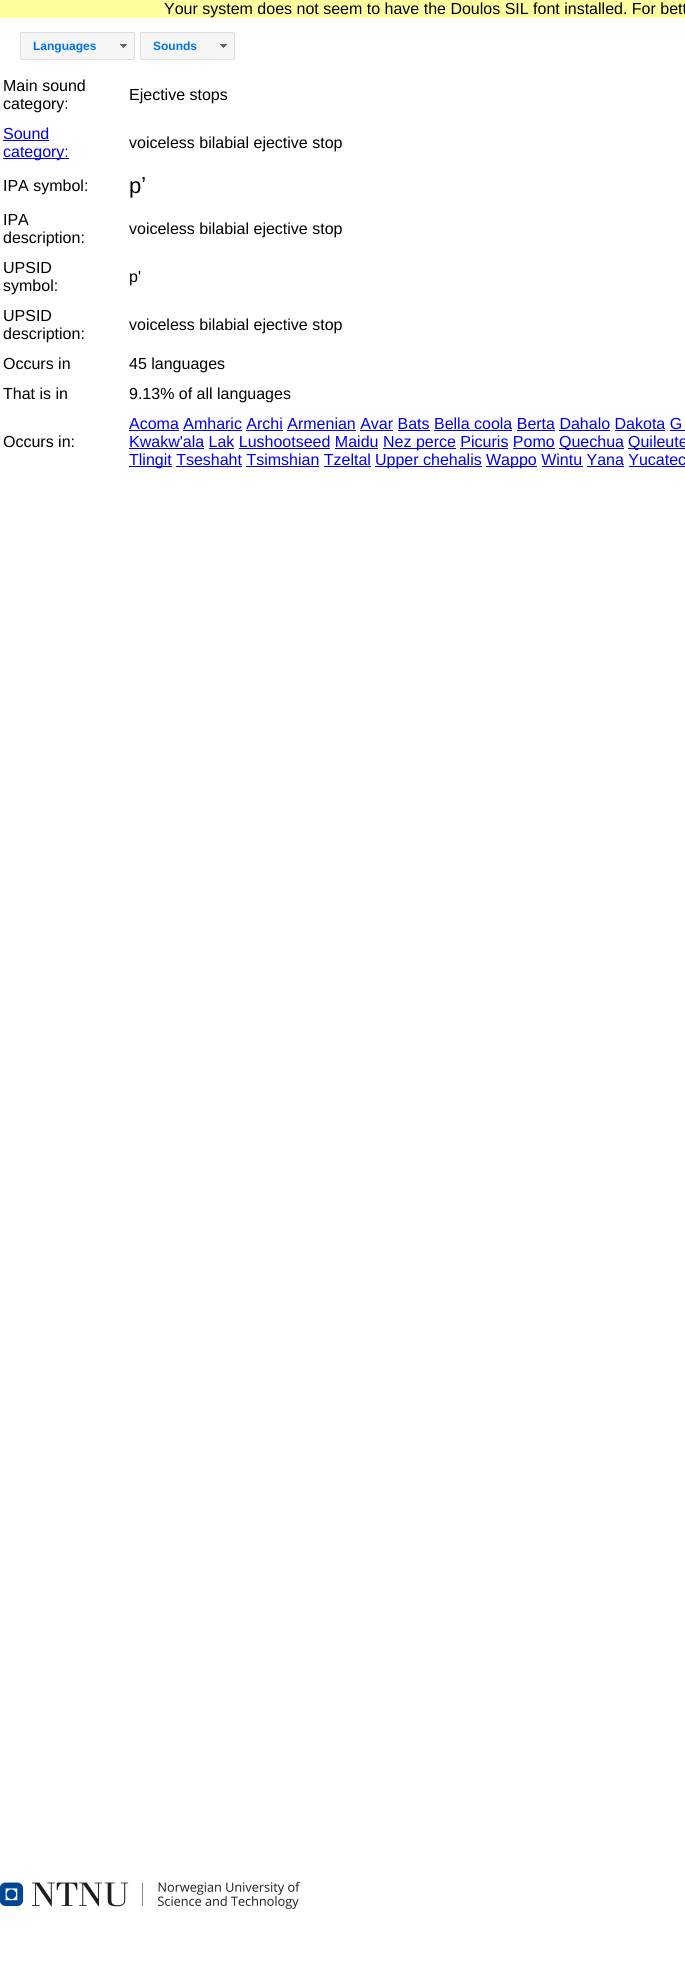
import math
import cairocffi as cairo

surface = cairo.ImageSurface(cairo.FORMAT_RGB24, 685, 1963)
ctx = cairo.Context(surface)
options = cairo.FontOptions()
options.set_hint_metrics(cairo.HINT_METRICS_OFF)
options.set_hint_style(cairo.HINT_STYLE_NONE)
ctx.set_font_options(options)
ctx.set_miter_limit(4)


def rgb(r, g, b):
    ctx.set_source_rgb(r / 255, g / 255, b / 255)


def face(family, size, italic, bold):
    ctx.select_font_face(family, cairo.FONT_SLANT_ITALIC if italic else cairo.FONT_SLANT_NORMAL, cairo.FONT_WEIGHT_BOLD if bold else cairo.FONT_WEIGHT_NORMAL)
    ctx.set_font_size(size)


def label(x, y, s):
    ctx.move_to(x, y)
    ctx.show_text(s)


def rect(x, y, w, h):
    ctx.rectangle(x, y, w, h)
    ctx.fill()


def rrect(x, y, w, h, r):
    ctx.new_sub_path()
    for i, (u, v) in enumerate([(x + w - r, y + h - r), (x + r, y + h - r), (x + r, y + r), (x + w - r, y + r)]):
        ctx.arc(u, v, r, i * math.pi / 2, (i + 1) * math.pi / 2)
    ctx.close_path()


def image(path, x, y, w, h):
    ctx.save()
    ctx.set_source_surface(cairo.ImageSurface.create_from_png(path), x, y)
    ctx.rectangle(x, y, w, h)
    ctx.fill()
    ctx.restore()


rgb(255, 255, 255)
ctx.paint()
rgb(255, 255, 160)
rect(0, 0, 685, 18)
face('Liberation Sans', 16, 0, 0)
rgb(0, 0, 0)
label(164, 14, 'Your system does not seem to have the Doulos SIL font installed. For bett')
rgb(246, 246, 246)
rrect(20.5, 32.5, 114, 27, 1.5)
ctx.fill_preserve()
rgb(221, 221, 221)
ctx.set_line_width(1)
ctx.stroke()
face('Liberation Sans', 12, 0, 1)
rgb(0, 115, 234)
label(33, 50, 'Languages')
image('image0.png', 120, 44, 7, 4)
rgb(246, 246, 246)
rrect(140.5, 32.5, 94, 27, 1.5)
ctx.fill_preserve()
rgb(221, 221, 221)
ctx.stroke()
rgb(0, 115, 234)
label(153, 50, 'Sounds')
image('image0.png', 220, 44, 7, 4)
face('Liberation Sans', 16, 0, 0)
rgb(0, 0, 0)
label(3, 91, 'Main sound')
label(3, 109, 'category:')
label(129, 100, 'Ejective stops')
rgb(0, 0, 238)
label(3, 139, 'Sound')
rect(3, 140, 46, 1)
rect(3, 158, 66, 1)
label(3, 157, 'category:')
rgb(0, 0, 0)
label(129, 148, 'voiceless bilabial ejective stop')
label(3, 191, 'IPA symbol:')
face('Liberation Sans', 22, 0, 0)
label(129, 193, 'pʼ')
face('Liberation Sans', 16, 0, 0)
label(3, 225, 'IPA')
label(3, 243, 'description:')
label(129, 234, 'voiceless bilabial ejective stop')
label(3, 273, 'UPSID')
label(3, 291, 'symbol:')
label(129, 282, 'p\'')
label(3, 321, 'UPSID')
label(3, 339, 'description:')
label(129, 330, 'voiceless bilabial ejective stop')
label(3, 369, 'Occurs in')
label(129, 369, '45 languages')
label(3, 399, 'That is in')
label(129, 399, '9.13% of all languages')
label(3, 447, 'Occurs in:')
rgb(0, 0, 238)
label(129, 429, 'Acoma Amharic Archi Armenian Avar Bats Bella coola Berta Dahalo Dakota G')
rect(129, 430, 50, 1)
rect(183, 430, 59, 1)
rect(246, 430, 37, 1)
rect(287, 430, 69, 1)
rect(360, 430, 33, 1)
rect(398, 430, 32, 1)
rect(434, 430, 78, 1)
rect(517, 430, 38, 1)
rect(559, 430, 51, 1)
rect(615, 430, 50, 1)
rect(670, 430, 15, 1)
label(129, 447, 'Kwakw\'ala Lak Lushootseed Maidu')
rect(129, 448, 75, 1)
rect(383, 448, 73, 1)
label(383, 447, 'Nez perce Picuris Pomo')
rect(559, 448, 65, 1)
label(559, 447, 'Quechua')
rect(628, 448, 57, 1)
label(628, 447, 'Quileute')
rect(209, 448, 25, 1)
rect(239, 448, 91, 1)
rect(335, 448, 43, 1)
rect(460, 448, 48, 1)
rect(513, 448, 42, 1)
rect(129, 466, 43, 1)
label(129, 465, 'Tlingit Tseshaht Tsimshian Tzeltal')
rect(375, 466, 107, 1)
label(375, 465, 'Upper chehalis')
rect(486, 466, 51, 1)
label(486, 465, 'Wappo Wintu Yana Yucatec')
rect(176, 466, 66, 1)
rect(246, 466, 73, 1)
rect(324, 466, 47, 1)
rect(542, 466, 41, 1)
rect(587, 466, 37, 1)
rect(629, 466, 56, 1)
image('image1.png', 0, 1881, 300, 28)
surface.write_to_png('render.png')
